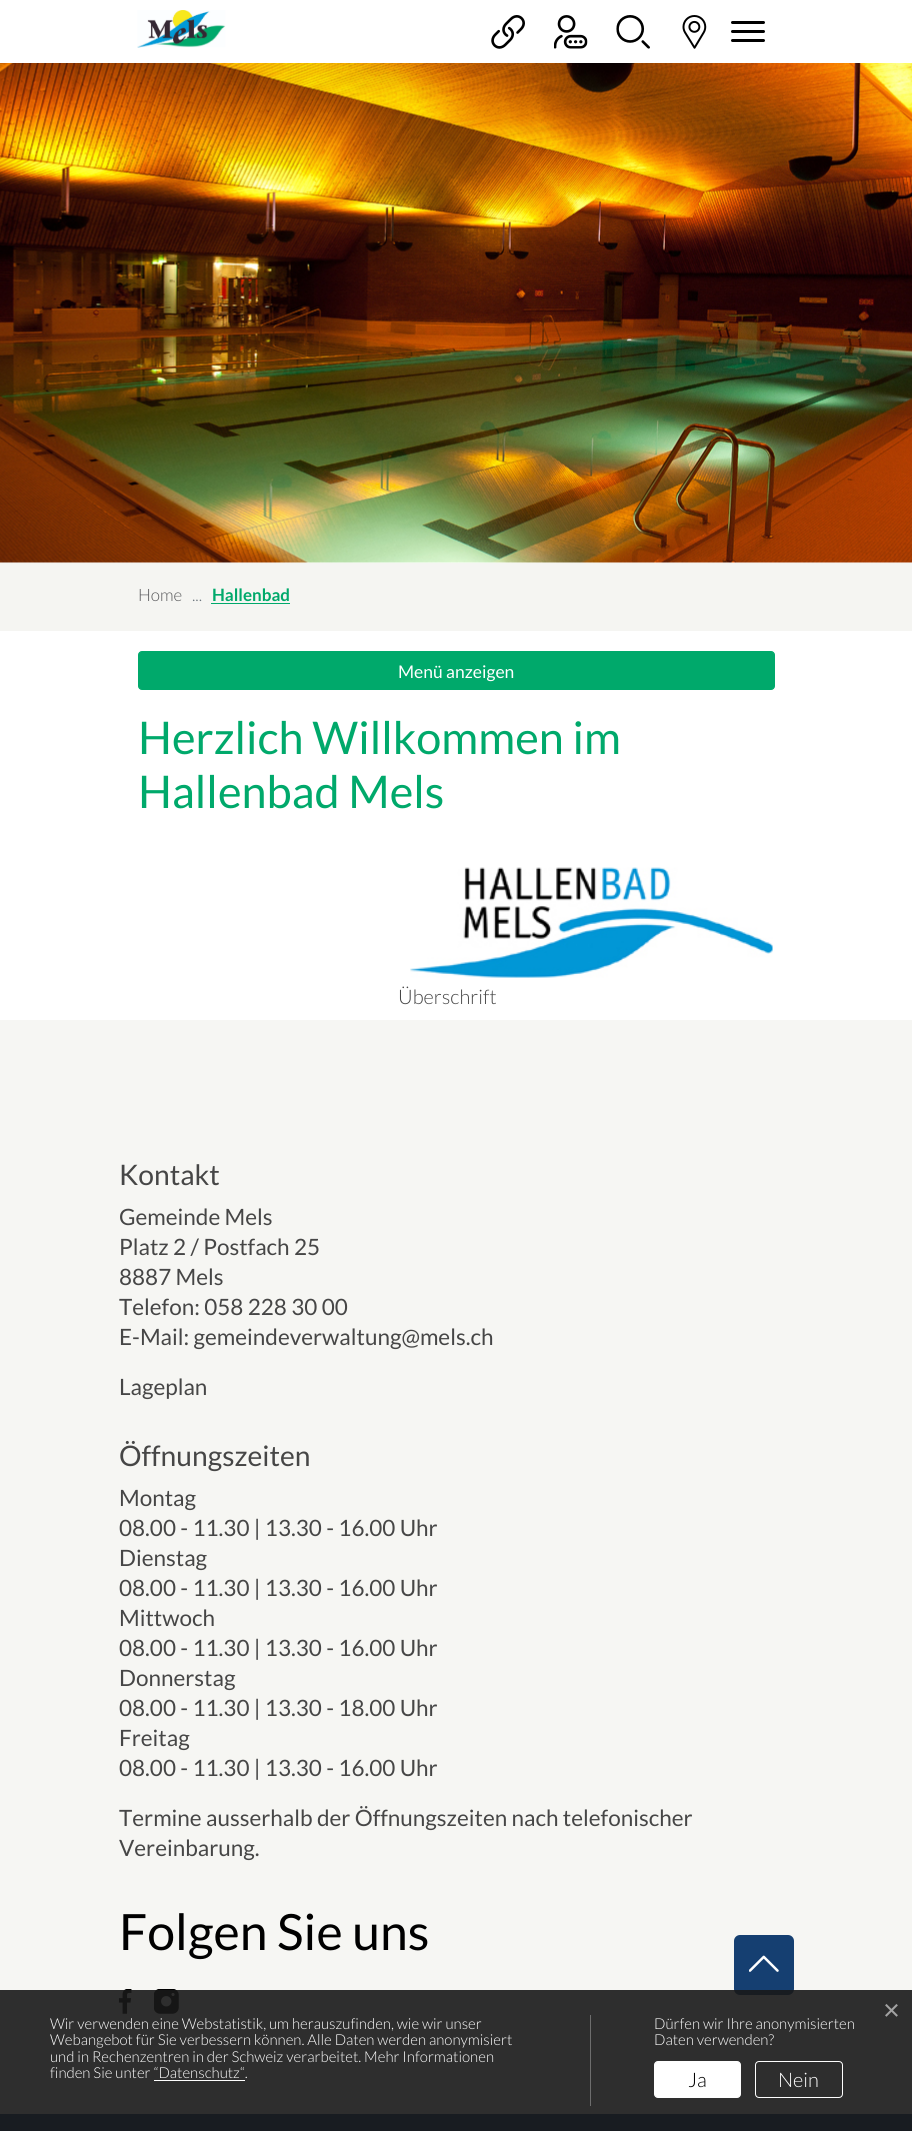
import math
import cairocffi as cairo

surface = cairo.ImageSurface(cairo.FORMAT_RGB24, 912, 2131)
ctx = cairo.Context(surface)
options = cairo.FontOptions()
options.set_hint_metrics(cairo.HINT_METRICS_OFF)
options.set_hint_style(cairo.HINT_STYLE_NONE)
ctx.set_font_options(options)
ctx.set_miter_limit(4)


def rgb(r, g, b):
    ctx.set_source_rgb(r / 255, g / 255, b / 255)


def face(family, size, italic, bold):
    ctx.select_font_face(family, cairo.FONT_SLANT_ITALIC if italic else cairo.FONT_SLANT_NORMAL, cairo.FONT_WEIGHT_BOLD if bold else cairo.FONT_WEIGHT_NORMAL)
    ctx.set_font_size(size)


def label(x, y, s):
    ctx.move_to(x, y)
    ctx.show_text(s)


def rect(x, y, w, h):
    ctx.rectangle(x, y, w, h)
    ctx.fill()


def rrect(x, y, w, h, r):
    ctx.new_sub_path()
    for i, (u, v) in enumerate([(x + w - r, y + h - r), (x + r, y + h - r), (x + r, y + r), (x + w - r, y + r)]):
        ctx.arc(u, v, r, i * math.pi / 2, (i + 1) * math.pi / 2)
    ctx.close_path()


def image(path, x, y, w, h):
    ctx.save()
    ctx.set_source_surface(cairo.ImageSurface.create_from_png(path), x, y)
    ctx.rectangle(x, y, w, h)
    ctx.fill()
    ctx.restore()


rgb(255, 255, 255)
ctx.paint()
image('image0.png', 137, 10, 89, 38)
image('image1.png', 491, 15, 34, 34)
image('image2.png', 554, 15, 34, 34)
image('image3.png', 616, 15, 34, 34)
image('image4.png', 682, 15, 25, 34)
rgb(0, 0, 0)
rrect(731, 21, 34, 3, 1.5)
ctx.fill()
rrect(731, 30, 34, 3, 1.5)
ctx.fill()
rrect(731, 39, 34, 3, 1.5)
ctx.fill()
image('image5.png', 0, 63, 912, 500)
rgb(245, 245, 242)
rect(0, 563, 912, 68)
face('Lato Light', 17, 0, 0)
rgb(89, 90, 92)
label(138, 601, 'Home')
rgb(108, 117, 125)
label(192, 601, '...')
face('Lato', 17, 0, 1)
rgb(0, 169, 107)
label(212, 601, 'Hallenbad')
rect(211, 603, 79, 1)
rrect(138.5, 651.5, 636, 38, 3.5)
ctx.fill_preserve()
ctx.set_line_width(1)
ctx.stroke()
face('Lato', 17.5, 0, 0)
rgb(255, 255, 255)
label(398, 678, 'Menü anzeigen')
face('Lato', 45, 0, 0)
rgb(0, 169, 107)
label(138, 754, 'Herzlich Willkommen im')
label(138, 808, 'Hallenbad Mels')
image('image6.png', 410, 867, 363, 111)
face('Lato Light', 20, 0, 0)
rgb(70, 70, 70)
label(398, 1004, 'Überschrift')
rgb(246, 246, 243)
rect(0, 1020, 912, 1094)
face('Lato', 28.25, 0, 0)
rgb(70, 70, 70)
label(119, 1185, 'Kontakt')
face('Lato', 22.5, 0, 0)
label(119, 1225, 'Gemeinde Mels')
label(119, 1255, 'Platz 2 / Postfach 25')
label(119, 1285, '8887 Mels')
label(119, 1315, 'Telefon: 058 228 30 00')
label(119, 1345, 'E-Mail: gemeindeverwaltung@mels.ch')
label(119, 1395, 'Lageplan')
face('Lato', 28.25, 0, 0)
label(119, 1466, 'Öffnungszeiten')
face('Lato', 22.5, 0, 0)
label(119, 1506, 'Montag')
label(119, 1536, '08.00 - 11.30 | 13.30 - 16.00 Uhr')
label(119, 1566, 'Dienstag')
label(119, 1596, '08.00 - 11.30 | 13.30 - 16.00 Uhr')
label(119, 1626, 'Mittwoch')
label(119, 1656, '08.00 - 11.30 | 13.30 - 16.00 Uhr')
label(119, 1686, 'Donnerstag')
label(119, 1716, '08.00 - 11.30 | 13.30 - 18.00 Uhr')
label(119, 1746, 'Freitag')
label(119, 1776, '08.00 - 11.30 | 13.30 - 16.00 Uhr')
label(119, 1826, 'Termine ausserhalb der Öffnungszeiten nach telefonischer')
label(119, 1856, 'Vereinbarung.')
face('Lato', 50, 0, 0)
rgb(0, 0, 0)
label(119, 1950, 'Folgen Sie uns')
rgb(21, 63, 113)
rrect(734, 1935, 60, 60, 6)
ctx.fill()
image('image7.png', 749, 1955, 30, 17)
image('image8.png', 118, 1989, 14, 25)
image('image9.png', 154, 1989, 25, 25)
rect(0, 2114, 912, 17)
ctx.set_source_rgba(0.098, 0.098, 0.098, 0.9)
rect(0, 1990, 912, 141)
face('Liberation Sans', 29, 0, 0)
rgb(162, 162, 162)
label(883, 2020, '×')
rgb(109, 109, 109)
rect(590, 2015, 1, 91)
face('Lato Light', 15, 0, 0)
rgb(255, 255, 255)
label(50, 2029, 'Wir verwenden eine Webstatistik, um herauszufinden, wie wir unser')
label(50, 2045, 'Webangebot für Sie verbessern können. Alle Daten werden anonymisiert')
label(50, 2062, 'und in Rechenzentren in der Schweiz verarbeitet. Mehr Informationen')
label(50, 2078, 'finden Sie unter “Datenschutz“.')
rect(154, 2080, 91, 1)
label(654, 2029, 'Dürfen wir Ihre anonymisierten')
label(654, 2045, 'Daten verwenden?')
rrect(654.5, 2061.5, 86, 36, 3.5)
ctx.fill_preserve()
ctx.stroke()
face('Lato Light', 20, 0, 0)
rgb(0, 0, 0)
label(688, 2087, 'Ja')
rrect(755.5, 2061.5, 87, 36, 3.5)
rgb(255, 255, 255)
ctx.stroke()
label(778, 2087, 'Nein')
surface.write_to_png('render.png')
